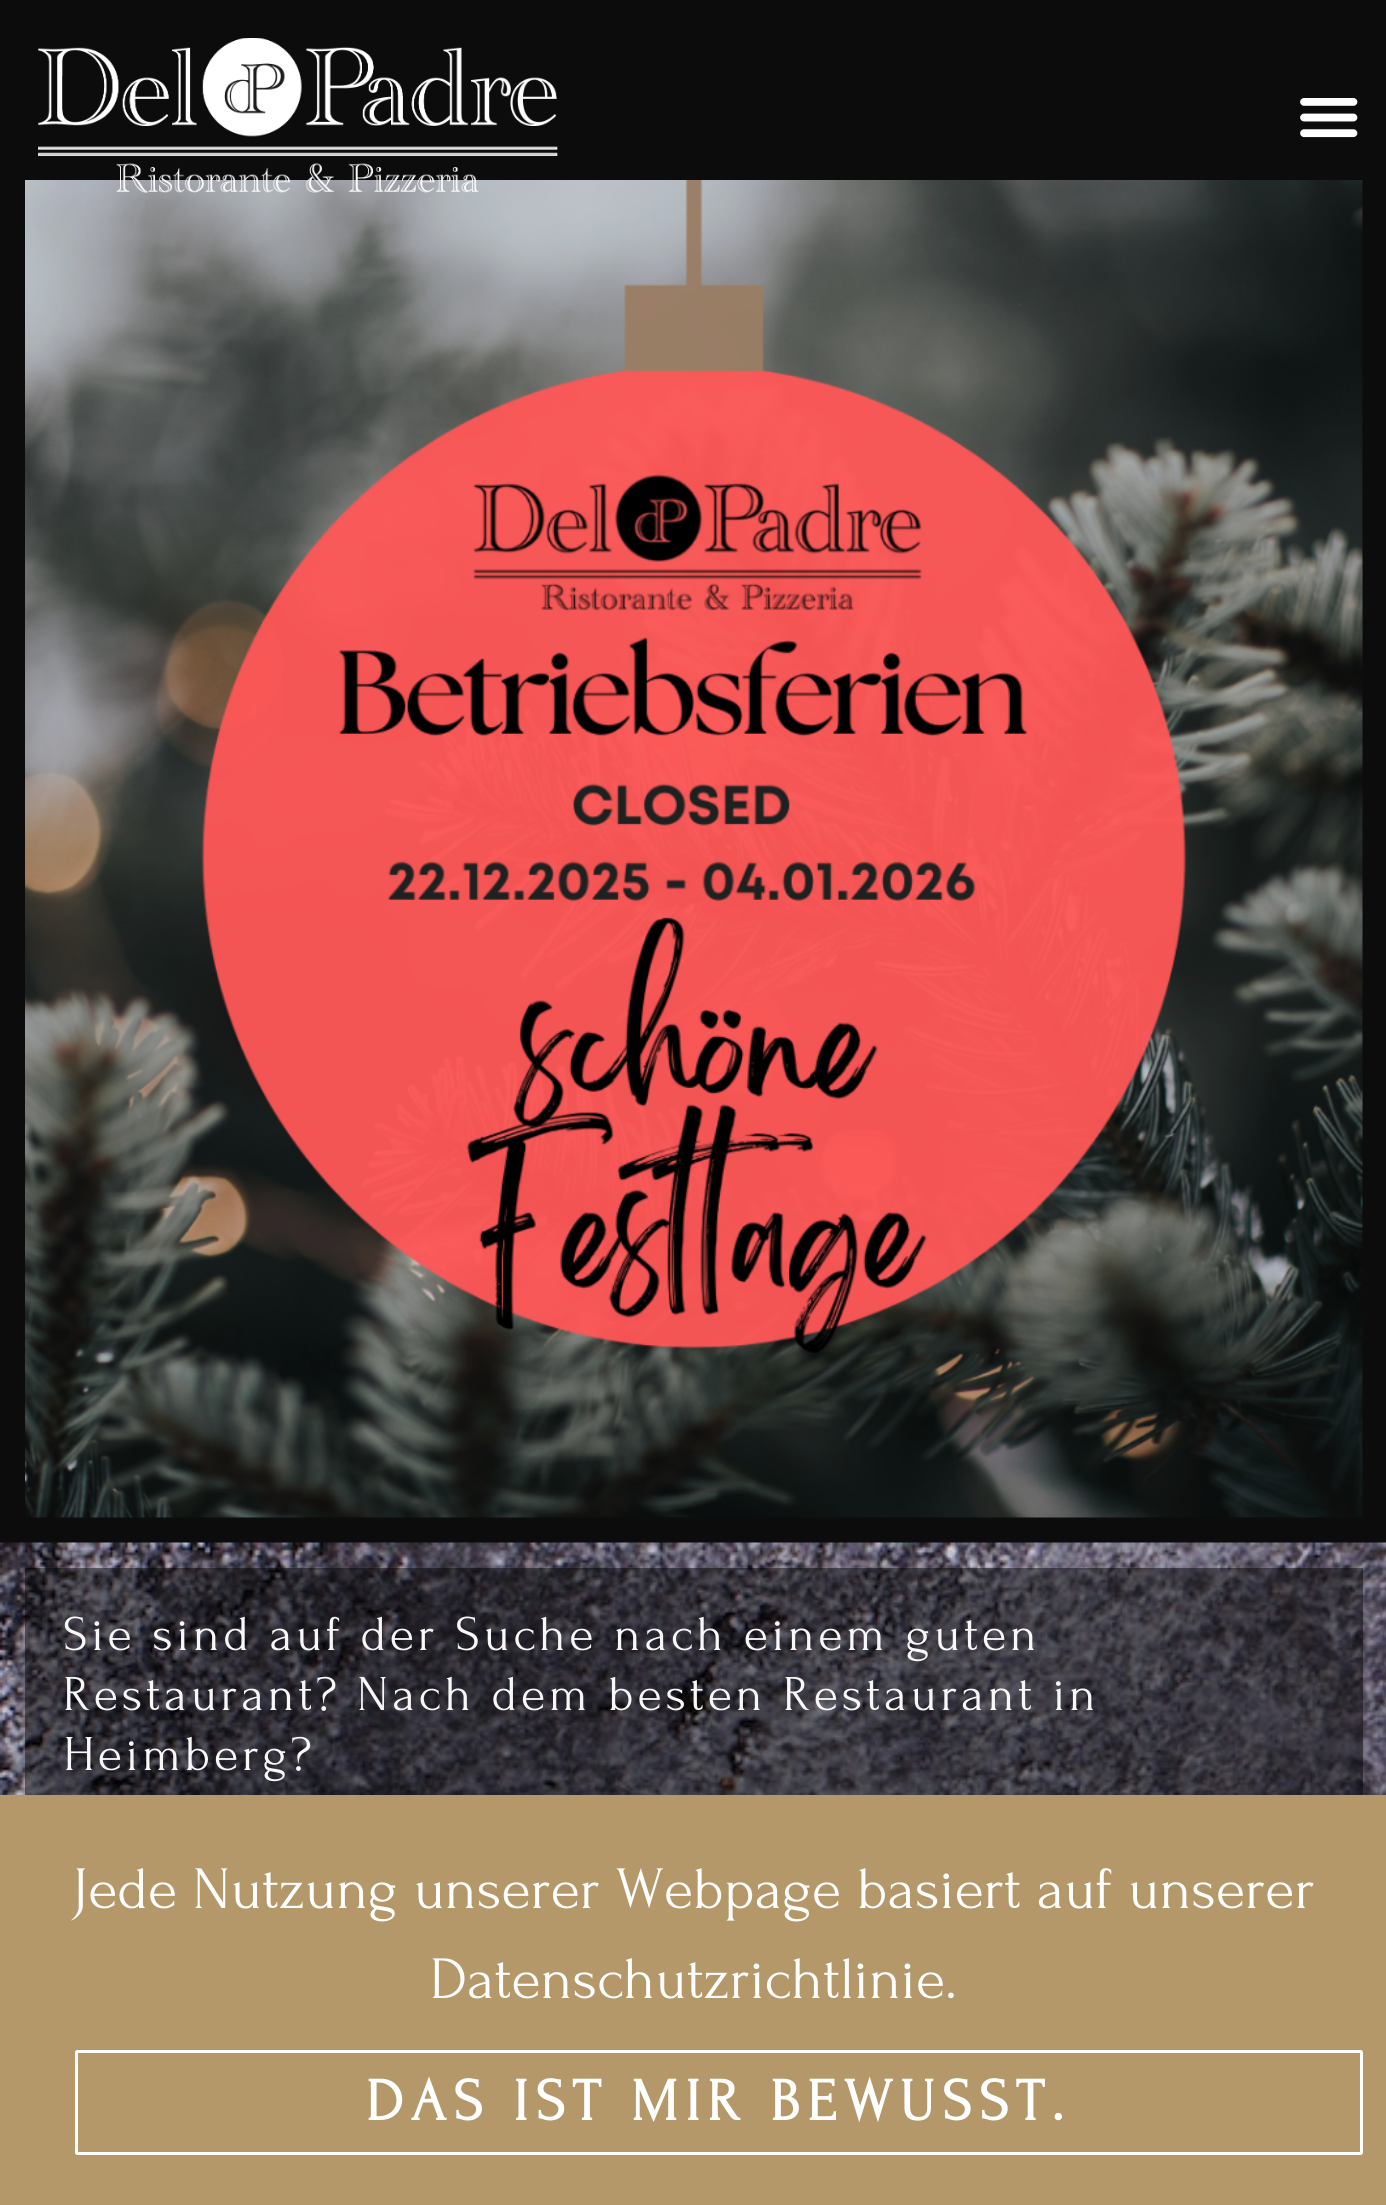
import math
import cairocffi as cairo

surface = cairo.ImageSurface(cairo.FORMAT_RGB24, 1386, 2205)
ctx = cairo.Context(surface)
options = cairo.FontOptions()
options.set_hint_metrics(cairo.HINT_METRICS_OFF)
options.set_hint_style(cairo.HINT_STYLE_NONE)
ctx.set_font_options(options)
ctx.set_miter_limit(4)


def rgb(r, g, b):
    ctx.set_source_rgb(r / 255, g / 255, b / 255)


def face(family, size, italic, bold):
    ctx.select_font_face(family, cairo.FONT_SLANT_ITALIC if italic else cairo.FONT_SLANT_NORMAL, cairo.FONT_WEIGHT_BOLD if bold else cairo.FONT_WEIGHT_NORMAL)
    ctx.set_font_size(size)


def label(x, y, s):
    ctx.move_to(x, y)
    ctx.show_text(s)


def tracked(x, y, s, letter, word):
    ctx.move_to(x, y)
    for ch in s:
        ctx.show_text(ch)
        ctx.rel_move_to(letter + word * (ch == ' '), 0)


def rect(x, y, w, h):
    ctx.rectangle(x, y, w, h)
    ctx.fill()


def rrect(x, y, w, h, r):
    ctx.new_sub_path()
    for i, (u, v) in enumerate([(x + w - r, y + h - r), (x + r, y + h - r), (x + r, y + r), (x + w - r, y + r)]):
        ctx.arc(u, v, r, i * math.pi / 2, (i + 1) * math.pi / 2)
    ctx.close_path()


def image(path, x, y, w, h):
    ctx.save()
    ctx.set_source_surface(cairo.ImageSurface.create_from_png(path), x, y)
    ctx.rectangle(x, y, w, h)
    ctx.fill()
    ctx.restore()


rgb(12, 12, 12)
ctx.paint()
image('image2.png', 25, 180, 1338, 1338)
image('image0.png', 38, 38, 520, 155)
image('image1.png', 1300, 98, 58, 40)
image('image3.png', 0, 1542, 1386, 253)
face('Forum', 50, 0, 0)
rgb(248, 248, 248)
tracked(63, 1650, 'Sie sind auf der Suche nach einem guten', 3.75, 0)
tracked(63, 1710, 'Restaurant? Nach dem besten Restaurant in', 3.75, 0)
tracked(63, 1770, 'Heimberg?', 3.75, 0)
rgb(181, 152, 106)
rect(0, 1795, 1386, 410)
face('Forum', 60, 0, 0)
rgb(255, 255, 255)
label(72, 1908, 'Jede Nutzung unserer Webpage basiert auf unserer')
label(430, 1998, 'Datenschutzrichtlinie.')
rrect(76.5, 2051.5, 1285, 102, 1)
ctx.set_line_width(3)
ctx.stroke()
face('Forum', 60, 0, 1)
tracked(366, 2120, 'DAS IST MIR BEWUSST.', 7.5, 0)
surface.write_to_png('render.png')
